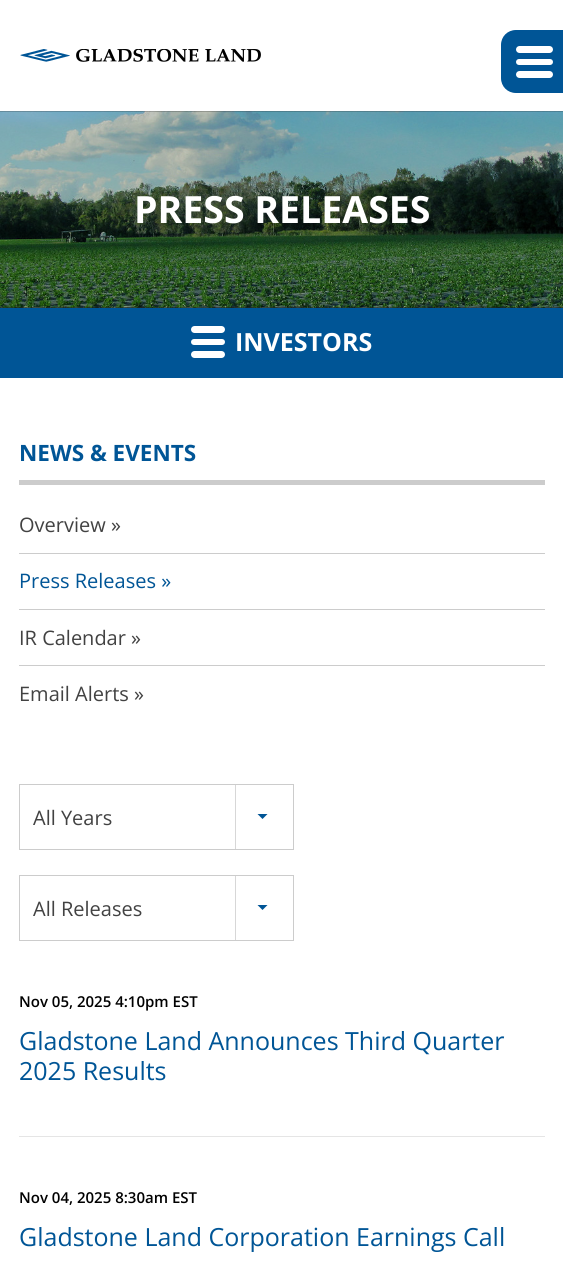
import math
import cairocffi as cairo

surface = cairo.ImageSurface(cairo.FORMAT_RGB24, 563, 1263)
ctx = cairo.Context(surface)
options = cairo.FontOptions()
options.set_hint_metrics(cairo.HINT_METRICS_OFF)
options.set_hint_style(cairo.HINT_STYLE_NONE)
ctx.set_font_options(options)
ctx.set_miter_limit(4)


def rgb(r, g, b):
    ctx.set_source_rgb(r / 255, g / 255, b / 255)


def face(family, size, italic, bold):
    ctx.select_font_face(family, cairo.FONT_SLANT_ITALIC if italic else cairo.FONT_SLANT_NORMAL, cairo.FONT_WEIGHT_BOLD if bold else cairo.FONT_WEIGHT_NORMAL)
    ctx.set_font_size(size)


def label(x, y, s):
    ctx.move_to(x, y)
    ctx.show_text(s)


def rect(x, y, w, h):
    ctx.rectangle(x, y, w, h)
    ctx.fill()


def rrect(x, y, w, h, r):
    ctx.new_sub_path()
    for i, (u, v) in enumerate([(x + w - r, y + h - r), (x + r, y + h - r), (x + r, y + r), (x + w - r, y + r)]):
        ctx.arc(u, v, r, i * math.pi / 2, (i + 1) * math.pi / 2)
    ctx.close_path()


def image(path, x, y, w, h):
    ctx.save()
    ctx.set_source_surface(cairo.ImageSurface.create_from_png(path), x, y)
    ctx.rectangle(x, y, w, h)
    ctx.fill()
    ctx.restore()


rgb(255, 255, 255)
ctx.paint()
image('image0.png', 20, 49, 241, 13)
rgb(0, 85, 150)
ctx.new_path()
ctx.move_to(516, 30)
ctx.line_to(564, 30)
ctx.line_to(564, 93)
ctx.line_to(516, 93)
ctx.curve_to(507.5, 93, 501, 86.5, 501, 78)
ctx.line_to(501, 45)
ctx.curve_to(501, 36.5, 507.5, 30, 516, 30)
ctx.close_path()
ctx.fill()
rgb(255, 255, 255)
rrect(516, 46, 37, 7, 3.5)
ctx.fill()
rrect(516, 59, 37, 6, 3)
ctx.fill()
rrect(516, 71, 37, 7, 3.5)
ctx.fill()
rgb(41, 41, 41)
rect(0, 111, 563, 197)
image('image1.png', 0, 111, 563, 197)
face('Open Sans', 37.5, 0, 1)
rgb(255, 255, 255)
label(134, 223, 'PRESS RELEASES')
rgb(0, 85, 150)
rect(0, 308, 563, 70)
rgb(255, 255, 255)
rrect(191, 326, 34, 7, 3.5)
ctx.fill()
rrect(191, 339, 34, 6, 3)
ctx.fill()
rrect(191, 351, 34, 7, 3.5)
ctx.fill()
face('Open Sans', 25, 0, 1)
label(235, 351, 'INVESTORS')
rgb(204, 204, 204)
rect(19, 480, 526, 5)
face('Open Sans', 22.5, 0, 1)
rgb(0, 85, 150)
label(19, 461, 'NEWS & EVENTS')
rgb(204, 204, 204)
rect(19, 553, 526, 1)
face('Open Sans', 20, 0, 0)
rgb(66, 66, 66)
label(19, 532, 'Overview »')
rgb(204, 204, 204)
rect(19, 609, 526, 1)
rgb(0, 85, 150)
label(19, 588, 'Press Releases »')
rgb(204, 204, 204)
rect(19, 665, 526, 1)
rgb(66, 66, 66)
label(19, 645, 'IR Calendar »')
label(19, 701, 'Email Alerts »')
ctx.rectangle(19.5, 784.5, 274, 65)
rgb(204, 204, 204)
ctx.set_line_width(1)
ctx.stroke()
rgb(66, 66, 66)
label(33, 825, 'All Years')
rgb(215, 215, 215)
rect(235, 785, 1, 64)
rgb(0, 85, 150)
ctx.new_path()
ctx.move_to(257.5, 814)
ctx.line_to(267.5, 814)
ctx.line_to(262.5, 819)
ctx.close_path()
ctx.fill()
ctx.rectangle(19.5, 875.5, 274, 65)
rgb(204, 204, 204)
ctx.stroke()
rgb(66, 66, 66)
label(33, 916, 'All Releases')
rgb(215, 215, 215)
rect(235, 876, 1, 64)
rgb(0, 85, 150)
ctx.new_path()
ctx.move_to(257.5, 905)
ctx.line_to(267.5, 905)
ctx.line_to(262.5, 910)
ctx.close_path()
ctx.fill()
face('Open Sans SemiBold', 15, 0, 0)
rgb(0, 0, 0)
label(19, 1007, 'Nov 05, 2025 4:10pm EST')
face('Open Sans', 25, 0, 0)
rgb(0, 85, 150)
label(19, 1050, 'Gladstone Land Announces Third Quarter')
label(19, 1080, '2025 Results')
rgb(229, 229, 229)
rect(19, 1136, 526, 1)
face('Open Sans SemiBold', 15, 0, 0)
rgb(0, 0, 0)
label(19, 1203, 'Nov 04, 2025 8:30am EST')
face('Open Sans', 25, 0, 0)
rgb(0, 85, 150)
label(19, 1246, 'Gladstone Land Corporation Earnings Call')
surface.write_to_png('render.png')
